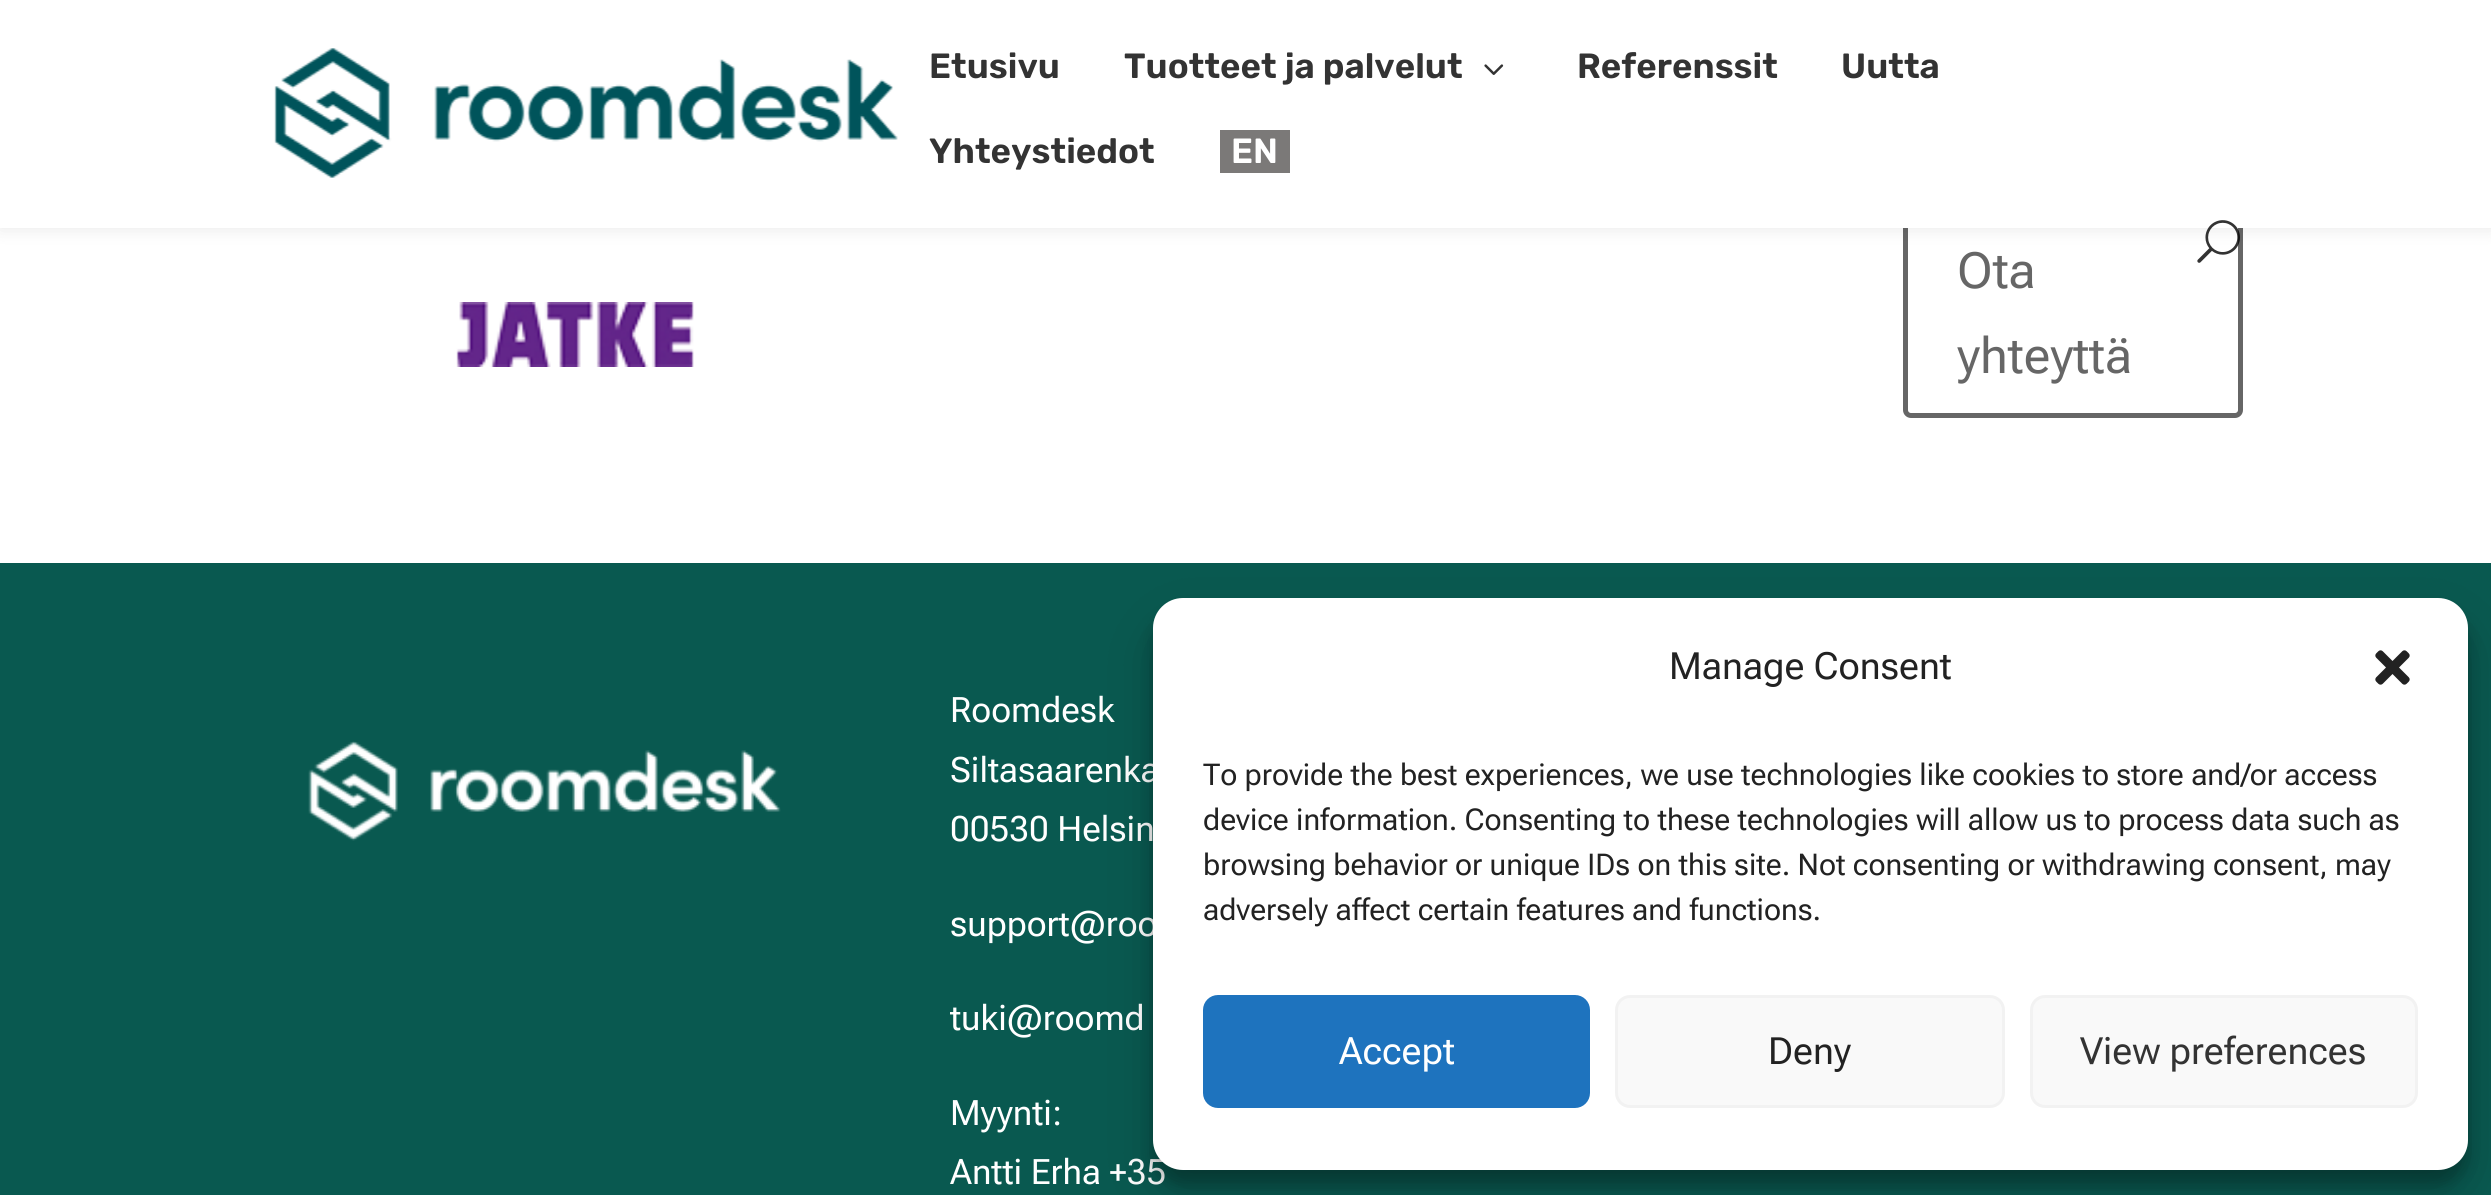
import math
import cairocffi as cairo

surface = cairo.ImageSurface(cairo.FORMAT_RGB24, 2491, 1195)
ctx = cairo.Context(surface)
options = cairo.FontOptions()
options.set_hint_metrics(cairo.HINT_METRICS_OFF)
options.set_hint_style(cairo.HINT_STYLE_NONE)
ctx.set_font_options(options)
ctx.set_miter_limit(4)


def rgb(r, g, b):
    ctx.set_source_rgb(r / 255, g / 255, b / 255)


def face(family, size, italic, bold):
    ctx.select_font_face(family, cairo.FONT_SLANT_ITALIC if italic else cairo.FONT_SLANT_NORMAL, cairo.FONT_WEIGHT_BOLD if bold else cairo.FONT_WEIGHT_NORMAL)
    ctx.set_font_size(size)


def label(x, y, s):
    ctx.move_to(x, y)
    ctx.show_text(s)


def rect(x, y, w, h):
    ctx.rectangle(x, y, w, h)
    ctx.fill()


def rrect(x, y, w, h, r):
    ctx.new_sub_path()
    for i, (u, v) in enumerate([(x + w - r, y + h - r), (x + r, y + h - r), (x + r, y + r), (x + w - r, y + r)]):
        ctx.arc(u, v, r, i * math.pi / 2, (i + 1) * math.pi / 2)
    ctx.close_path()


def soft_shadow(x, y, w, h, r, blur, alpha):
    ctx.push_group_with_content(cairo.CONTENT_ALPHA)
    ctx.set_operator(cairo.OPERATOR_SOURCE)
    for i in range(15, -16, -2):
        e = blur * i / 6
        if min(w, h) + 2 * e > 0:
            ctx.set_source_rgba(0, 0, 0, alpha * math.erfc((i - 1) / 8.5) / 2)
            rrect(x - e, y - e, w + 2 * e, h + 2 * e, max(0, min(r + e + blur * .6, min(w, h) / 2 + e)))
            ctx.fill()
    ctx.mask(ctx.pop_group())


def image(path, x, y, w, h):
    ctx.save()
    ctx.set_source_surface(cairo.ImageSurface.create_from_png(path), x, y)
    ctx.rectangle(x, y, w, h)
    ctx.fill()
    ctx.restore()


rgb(255, 255, 255)
ctx.paint()
rrect(1905.5, 210.5, 335, 205, 5.5)
rgb(102, 102, 102)
ctx.set_line_width(5)
ctx.stroke()
rgb(0, 0, 0)
soft_shadow(0, 0, 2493, 228, 0, 9, 0.1)
rgb(255, 255, 255)
rect(0, 0, 2491, 228)
image('image0.png', 274, 48, 624, 130)
face('Rubik SemiBold', 35, 0, 0)
rgb(51, 51, 51)
label(929, 78, 'Etusivu')
label(1124, 78, 'Tuotteet ja palvelut')
image('image1.png', 1484, 64, 20, 11)
label(1577, 78, 'Referenssit')
label(1841, 78, 'Uutta')
label(929, 163, 'Yhteystiedot')
rgb(123, 121, 120)
rect(1220, 130, 70, 43)
rgb(255, 255, 255)
label(1231, 163, 'EN')
image('image2.png', 2197, 220, 43, 43)
image('image3.png', 456, 302, 238, 65)
face('Roboto Flex', 50, 0, 0)
rgb(102, 102, 102)
label(1957, 288, 'Ota')
label(1957, 373, 'yhteyttä')
rgb(9, 89, 80)
rect(0, 563, 2491, 632)
image('image4.png', 308, 741, 473, 100)
face('Roboto Flex', 35, 0, 0)
rgb(255, 255, 255)
label(950, 722, 'Roomdesk')
label(950, 782, 'Siltasaarenka')
label(950, 841, '00530 Helsin')
label(950, 936, 'support@roo')
label(950, 1030, 'tuki@roomd')
label(950, 1125, 'Myynti:')
label(950, 1184, 'Antti Erha +35')
rgb(0, 0, 0)
soft_shadow(1153, 613, 1315, 572, 30, 7.5, 0.23)
soft_shadow(1153, 623, 1315, 572, 30, 25, 0.19)
rgb(255, 255, 255)
rrect(1153, 598, 1315, 572, 30)
ctx.fill()
face('Roboto Flex', 37.5, 0, 0)
rgb(34, 34, 34)
label(1669, 679, 'Manage Consent')
image('image5.png', 2375, 650, 35, 35)
face('Roboto Flex', 30, 0, 0)
label(1203, 785, 'To provide the best experiences, we use technologies like cookies to store and/or access')
label(1203, 830, 'device information. Consenting to these technologies will allow us to process data such as')
label(1203, 875, 'browsing behavior or unique IDs on this site. Not consenting or withdrawing consent, may')
label(1203, 920, 'adversely affect certain features and functions.')
rgb(30, 115, 190)
rrect(1204.5, 996.5, 384, 110, 13.5)
ctx.fill_preserve()
ctx.set_line_width(3)
ctx.stroke()
face('Roboto Flex', 37.5, 0, 0)
rgb(255, 255, 255)
label(1339, 1064, 'Accept')
rgb(249, 249, 249)
rrect(1616.5, 996.5, 387, 110, 13.5)
ctx.fill_preserve()
rgb(242, 242, 242)
ctx.stroke()
rgb(34, 34, 34)
label(1768, 1064, 'Deny')
rgb(249, 249, 249)
rrect(2031.5, 996.5, 385, 110, 13.5)
ctx.fill_preserve()
rgb(242, 242, 242)
ctx.stroke()
rgb(51, 51, 51)
label(2080, 1064, 'View preferences')
surface.write_to_png('render.png')
